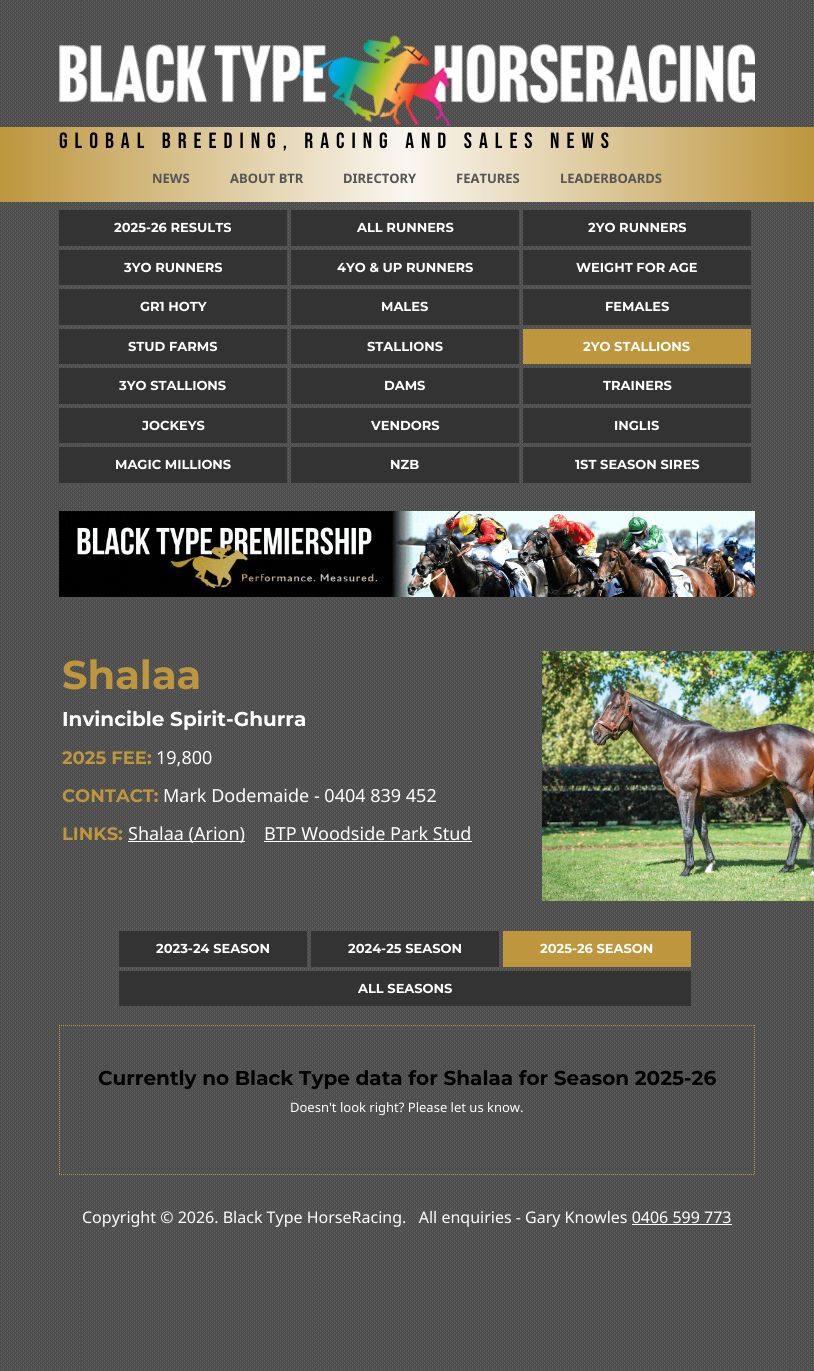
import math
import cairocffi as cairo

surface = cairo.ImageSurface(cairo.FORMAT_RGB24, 814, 1371)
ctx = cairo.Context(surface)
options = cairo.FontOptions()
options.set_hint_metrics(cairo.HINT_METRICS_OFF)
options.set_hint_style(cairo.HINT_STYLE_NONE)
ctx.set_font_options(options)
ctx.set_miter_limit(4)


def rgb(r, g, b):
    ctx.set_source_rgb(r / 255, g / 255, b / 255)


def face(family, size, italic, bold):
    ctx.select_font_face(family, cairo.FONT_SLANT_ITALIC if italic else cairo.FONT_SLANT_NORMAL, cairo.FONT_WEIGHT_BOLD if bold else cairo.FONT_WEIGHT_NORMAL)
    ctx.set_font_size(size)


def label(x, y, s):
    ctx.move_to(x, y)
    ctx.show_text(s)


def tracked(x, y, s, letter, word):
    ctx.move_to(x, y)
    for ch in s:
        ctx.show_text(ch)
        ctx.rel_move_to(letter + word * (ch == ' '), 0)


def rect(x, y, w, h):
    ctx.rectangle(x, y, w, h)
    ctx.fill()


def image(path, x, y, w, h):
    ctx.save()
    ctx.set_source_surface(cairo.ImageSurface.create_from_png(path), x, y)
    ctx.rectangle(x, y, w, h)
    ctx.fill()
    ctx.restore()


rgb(255, 255, 255)
ctx.paint()
image('image0.png', 0, 0, 814, 1371)
image('image1.png', 59, 35, 696, 91)
gradient = cairo.LinearGradient(0, 165, 814, 164)
gradient.add_color_stop_rgba(0, 0.741, 0.588, 0.239, 1)
gradient.add_color_stop_rgba(0.5, 0.98, 0.965, 0.941, 1)
gradient.add_color_stop_rgba(1, 0.741, 0.588, 0.239, 1)
ctx.set_source(gradient)
rect(0, 127, 814, 75)
face('Bebas Neue', 22, 0, 0)
rgb(0, 0, 0)
tracked(59, 148, 'Global Breeding, Racing and Sales News', 7, 0)
face('Noto Sans', 13, 0, 1)
rgb(85, 85, 85)
label(152, 183, 'NEWS')
label(230, 183, 'ABOUT BTR')
label(343, 183, 'DIRECTORY')
label(456, 183, 'FEATURES')
label(560, 183, 'LEADERBOARDS')
rgb(51, 51, 51)
rect(59, 210, 228, 36)
face('Montserrat', 13, 0, 1)
rgb(255, 255, 255)
label(114, 232, '2025-26 RESULTS')
rgb(51, 51, 51)
rect(291, 210, 228, 36)
rgb(255, 255, 255)
label(357, 232, 'ALL RUNNERS')
rgb(51, 51, 51)
rect(523, 210, 228, 36)
rgb(255, 255, 255)
label(588, 232, '2YO RUNNERS')
rgb(51, 51, 51)
rect(59, 250, 228, 35)
rgb(255, 255, 255)
label(124, 272, '3YO RUNNERS')
rgb(51, 51, 51)
rect(291, 250, 228, 35)
rgb(255, 255, 255)
label(337, 272, '4YO & UP RUNNERS')
rgb(51, 51, 51)
rect(523, 250, 228, 35)
rgb(255, 255, 255)
label(576, 272, 'WEIGHT FOR AGE')
rgb(51, 51, 51)
rect(59, 289, 228, 36)
rgb(255, 255, 255)
label(140, 311, 'GR1 HOTY')
rgb(51, 51, 51)
rect(291, 289, 228, 36)
rgb(255, 255, 255)
label(381, 311, 'MALES')
rgb(51, 51, 51)
rect(523, 289, 228, 36)
rgb(255, 255, 255)
label(605, 311, 'FEMALES')
rgb(51, 51, 51)
rect(59, 329, 228, 35)
rgb(255, 255, 255)
label(128, 351, 'STUD FARMS')
rgb(51, 51, 51)
rect(291, 329, 228, 35)
rgb(255, 255, 255)
label(367, 351, 'STALLIONS')
rgb(189, 150, 61)
rect(523, 329, 228, 35)
rgb(255, 255, 255)
label(583, 351, '2YO STALLIONS')
rgb(51, 51, 51)
rect(59, 368, 228, 36)
rgb(255, 255, 255)
label(119, 390, '3YO STALLIONS')
rgb(51, 51, 51)
rect(291, 368, 228, 36)
rgb(255, 255, 255)
label(384, 390, 'DAMS')
rgb(51, 51, 51)
rect(523, 368, 228, 36)
rgb(255, 255, 255)
label(603, 390, 'TRAINERS')
rgb(51, 51, 51)
rect(59, 408, 228, 35)
rgb(255, 255, 255)
label(142, 430, 'JOCKEYS')
rgb(51, 51, 51)
rect(291, 408, 228, 35)
rgb(255, 255, 255)
label(371, 430, 'VENDORS')
rgb(51, 51, 51)
rect(523, 408, 228, 35)
rgb(255, 255, 255)
label(614, 430, 'INGLIS')
rgb(51, 51, 51)
rect(59, 447, 228, 36)
rgb(255, 255, 255)
label(115, 469, 'MAGIC MILLIONS')
rgb(51, 51, 51)
rect(291, 447, 228, 36)
rgb(255, 255, 255)
label(390, 469, 'NZB')
rgb(51, 51, 51)
rect(523, 447, 228, 36)
rgb(255, 255, 255)
label(575, 469, '1ST SEASON SIRES')
image('image2.png', 59, 511, 696, 86)
face('Montserrat', 40, 0, 1)
rgb(189, 150, 61)
label(62, 689, 'Shalaa')
face('Montserrat', 20, 0, 1)
rgb(255, 255, 255)
label(62, 726, 'Invincible Spirit-Ghurra')
face('Montserrat', 18, 0, 1)
rgb(189, 150, 61)
label(62, 764, '2025 FEE:')
face('Noto Sans', 18, 0, 0)
rgb(255, 255, 255)
label(156, 764, '19,800')
face('Montserrat', 18, 0, 1)
rgb(189, 150, 61)
label(62, 802, 'CONTACT:')
face('Noto Sans', 18, 0, 0)
rgb(255, 255, 255)
label(163, 802, 'Mark Dodemaide - 0404 839 452')
face('Montserrat', 18, 0, 1)
rgb(189, 150, 61)
label(62, 840, 'LINKS:')
rgb(255, 255, 255)
rect(128, 841, 117, 1)
face('Noto Sans', 18, 0, 0)
label(128, 840, 'Shalaa (Arion)')
label(264, 840, 'BTP Woodside Park Stud')
rect(264, 841, 208, 1)
image('image3.png', 542, 651, 272, 250)
rgb(51, 51, 51)
rect(119, 931, 188, 36)
face('Montserrat', 13, 0, 1)
rgb(255, 255, 255)
label(156, 953, '2023-24 SEASON')
rgb(51, 51, 51)
rect(311, 931, 188, 36)
rgb(255, 255, 255)
label(348, 953, '2024-25 SEASON')
rgb(189, 150, 61)
rect(503, 931, 188, 36)
rgb(255, 255, 255)
label(540, 953, '2025-26 SEASON')
rgb(51, 51, 51)
rect(119, 971, 572, 35)
rgb(255, 255, 255)
label(358, 993, 'ALL SEASONS')
ctx.new_path()
ctx.move_to(59, 1025.5)
ctx.line_to(755, 1025.5)
rgb(189, 150, 61)
ctx.set_line_width(1)
ctx.set_dash([1, 1])
ctx.stroke()
ctx.new_path()
ctx.move_to(754.5, 1025)
ctx.line_to(754.5, 1175)
ctx.stroke()
ctx.new_path()
ctx.move_to(59, 1174.5)
ctx.line_to(755, 1174.5)
ctx.stroke()
ctx.new_path()
ctx.move_to(59.5, 1025)
ctx.line_to(59.5, 1175)
ctx.stroke()
face('Montserrat', 20, 0, 1)
rgb(0, 0, 0)
label(98, 1085, 'Currently no Black Type data for Shalaa for Season 2025-26')
face('Noto Sans', 13, 0, 0)
rgb(255, 255, 255)
label(290, 1112, 'Doesn\'t look right? Please let us know.')
face('Noto Sans', 16, 0, 0)
label(82, 1223, 'Copyright © 2026. Black Type HorseRacing.   All enquiries - Gary Knowles 0406 599 773')
rect(632, 1224, 100, 1)
surface.write_to_png('render.png')
